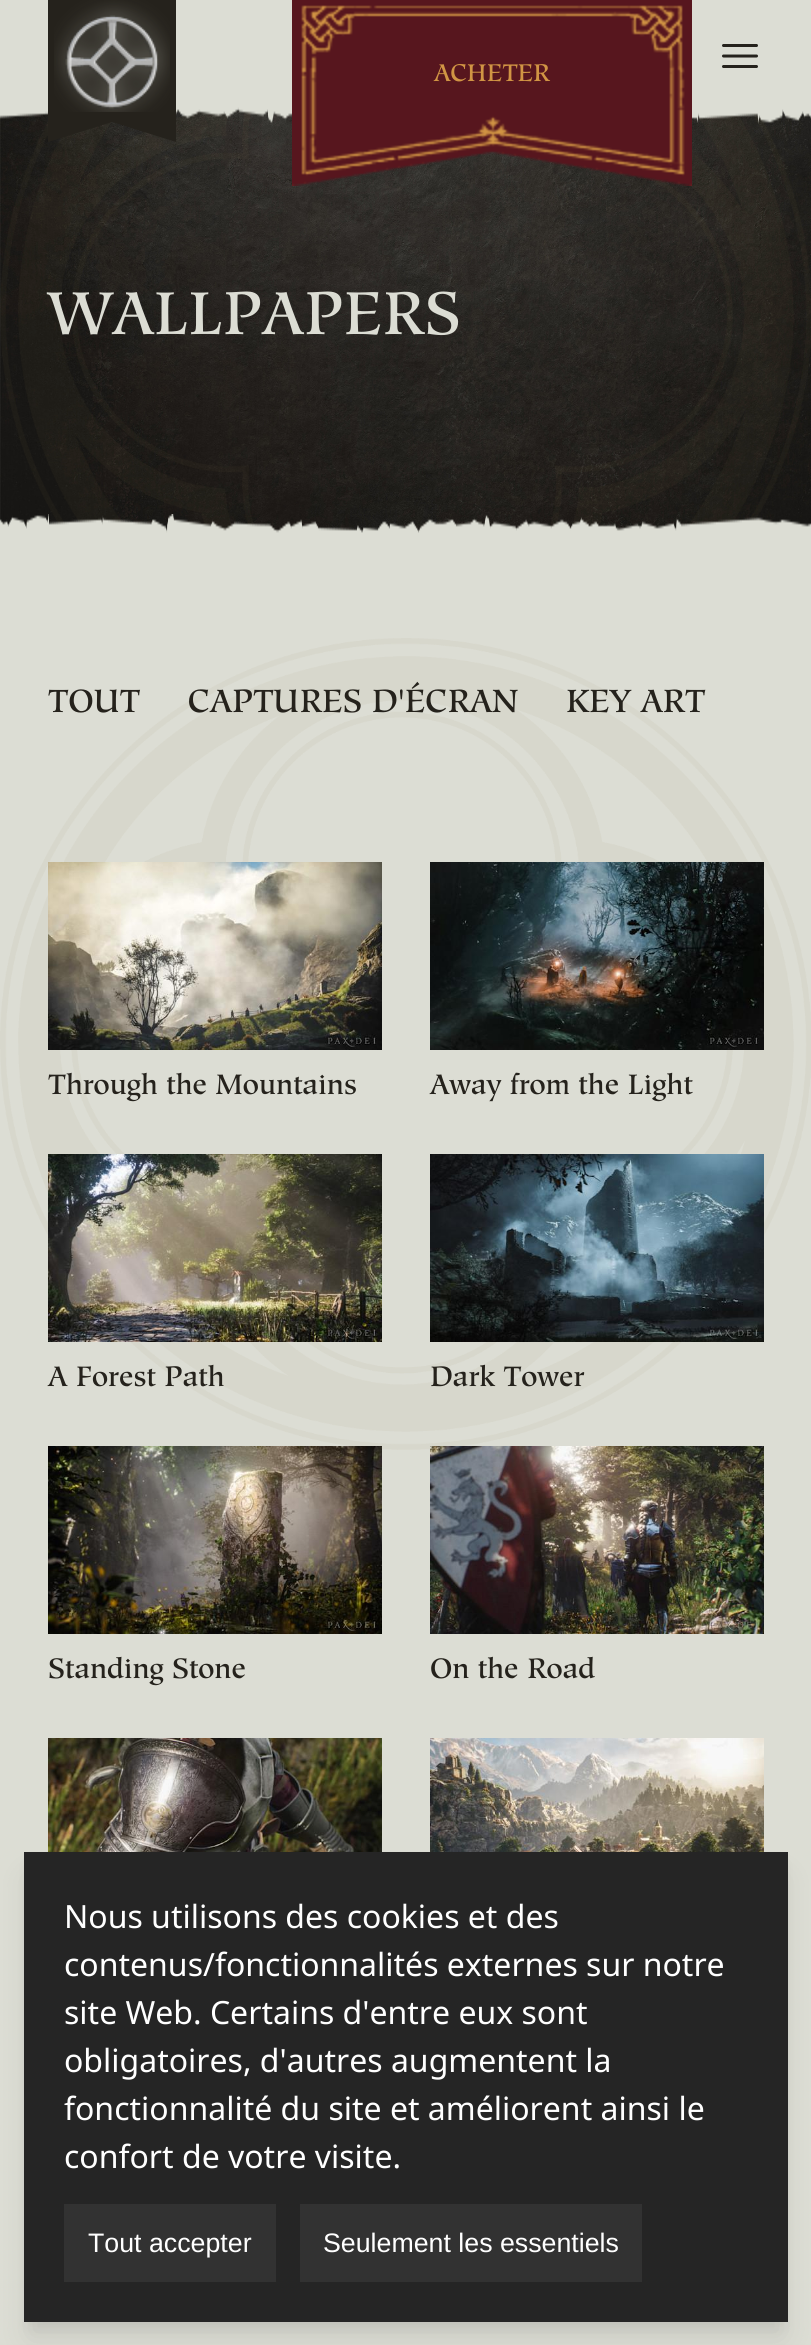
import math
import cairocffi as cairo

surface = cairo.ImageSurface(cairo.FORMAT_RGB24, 811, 2345)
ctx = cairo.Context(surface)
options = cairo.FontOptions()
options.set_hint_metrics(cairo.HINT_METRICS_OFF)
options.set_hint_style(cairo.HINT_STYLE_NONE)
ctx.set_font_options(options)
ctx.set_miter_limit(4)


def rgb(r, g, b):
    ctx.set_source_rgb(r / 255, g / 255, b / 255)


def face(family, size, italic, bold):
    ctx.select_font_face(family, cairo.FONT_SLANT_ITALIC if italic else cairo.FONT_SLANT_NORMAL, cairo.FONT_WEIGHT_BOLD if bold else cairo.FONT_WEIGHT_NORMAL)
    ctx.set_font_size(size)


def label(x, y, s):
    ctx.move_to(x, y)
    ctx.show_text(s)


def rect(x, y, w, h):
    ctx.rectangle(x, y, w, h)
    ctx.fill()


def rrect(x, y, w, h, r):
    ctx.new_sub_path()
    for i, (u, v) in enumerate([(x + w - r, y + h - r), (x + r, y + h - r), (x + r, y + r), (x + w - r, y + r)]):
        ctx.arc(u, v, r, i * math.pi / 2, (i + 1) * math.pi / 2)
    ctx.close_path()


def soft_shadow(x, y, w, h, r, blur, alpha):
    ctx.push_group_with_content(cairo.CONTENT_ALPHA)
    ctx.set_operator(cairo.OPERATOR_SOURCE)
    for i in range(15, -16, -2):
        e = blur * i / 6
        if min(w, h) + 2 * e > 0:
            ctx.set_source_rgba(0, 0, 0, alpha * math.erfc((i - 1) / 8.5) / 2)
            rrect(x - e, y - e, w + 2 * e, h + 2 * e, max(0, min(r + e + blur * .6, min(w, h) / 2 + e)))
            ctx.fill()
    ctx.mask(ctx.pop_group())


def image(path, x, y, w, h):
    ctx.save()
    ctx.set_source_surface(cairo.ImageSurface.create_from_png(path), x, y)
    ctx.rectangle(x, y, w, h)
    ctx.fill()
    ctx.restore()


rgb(220, 221, 212)
ctx.paint()
image('image3.png', 0, 107, 811, 426)
image('image4.png', 0, 111, 811, 420)
image('image2.png', 0, 96, 811, 28)
rgb(37, 34, 28)
ctx.new_path()
ctx.move_to(48, -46)
ctx.line_to(48, 142)
ctx.line_to(112, 122)
ctx.line_to(176, 142)
ctx.line_to(176, -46)
ctx.close_path()
ctx.fill()
image('image0.png', 54, 0, 116, 112)
ctx.new_path()
ctx.move_to(723.5, 45.5)
ctx.line_to(756.5, 45.5)
ctx.move_to(723.5, 56)
ctx.line_to(756.5, 56)
ctx.move_to(723.5, 66.5)
ctx.line_to(756.5, 66.5)
ctx.set_line_width(3)
ctx.set_line_cap(cairo.LINE_CAP_ROUND)
ctx.set_line_join(cairo.LINE_JOIN_ROUND)
ctx.stroke()
image('image1.png', 292, 0, 400, 186)
face('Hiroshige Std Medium', 24, 0, 0)
rgb(209, 149, 68)
label(434, 81, 'ACHETER')
face('Hiroshige Std Medium', 60, 0, 0)
rgb(220, 221, 212)
label(48, 334, 'WALLPAPERS')
image('image5.png', 0, 514, 811, 28)
image('image6.png', 0, 638, 811, 812)
face('Hiroshige Std Medium', 32, 0, 0)
rgb(37, 34, 28)
label(48, 712, 'TOUT')
label(188, 712, 'CAPTURES D\'ÉCRAN')
label(566, 712, 'KEY ART')
image('image7.png', 48, 862, 334, 188)
face('Hiroshige Std Medium', 28, 0, 0)
label(48, 1094, 'Through the Mountains')
image('image8.png', 430, 862, 334, 188)
label(430, 1094, 'Away from the Light')
image('image9.png', 48, 1154, 334, 188)
label(48, 1386, 'A Forest Path')
image('image10.png', 430, 1154, 334, 188)
label(430, 1386, 'Dark Tower')
image('image11.png', 48, 1446, 334, 188)
label(48, 1678, 'Standing Stone')
image('image12.png', 430, 1446, 334, 188)
label(430, 1678, 'On the Road')
image('image13.png', 48, 1738, 334, 114)
image('image14.png', 430, 1738, 334, 114)
rgb(0, 0, 0)
soft_shadow(28, 1864, 756, 462, 0, 6, 0.05)
soft_shadow(30, 1878, 752, 458, 0, 15, 0.1)
rgb(37, 37, 37)
rect(24, 1852, 764, 470)
face('Noto Sans', 32, 0, 0)
rgb(255, 255, 255)
label(64, 1928, 'Nous utilisons des cookies et des')
label(64, 1976, 'contenus/fonctionnalités externes sur notre')
label(64, 2024, 'site Web. Certains d\'entre eux sont')
label(64, 2072, 'obligatoires, d\'autres augmentent la')
label(64, 2120, 'fonctionnalité du site et améliorent ainsi le')
label(64, 2168, 'confort de votre visite.')
rgb(50, 50, 50)
rect(64, 2204, 212, 78)
face('Liberation Sans', 26.75, 0, 0)
rgb(255, 255, 255)
label(88, 2252, 'Tout accepter')
rgb(50, 50, 50)
rect(300, 2204, 342, 78)
rgb(255, 255, 255)
label(323, 2252, 'Seulement les essentiels')
surface.write_to_png('render.png')
